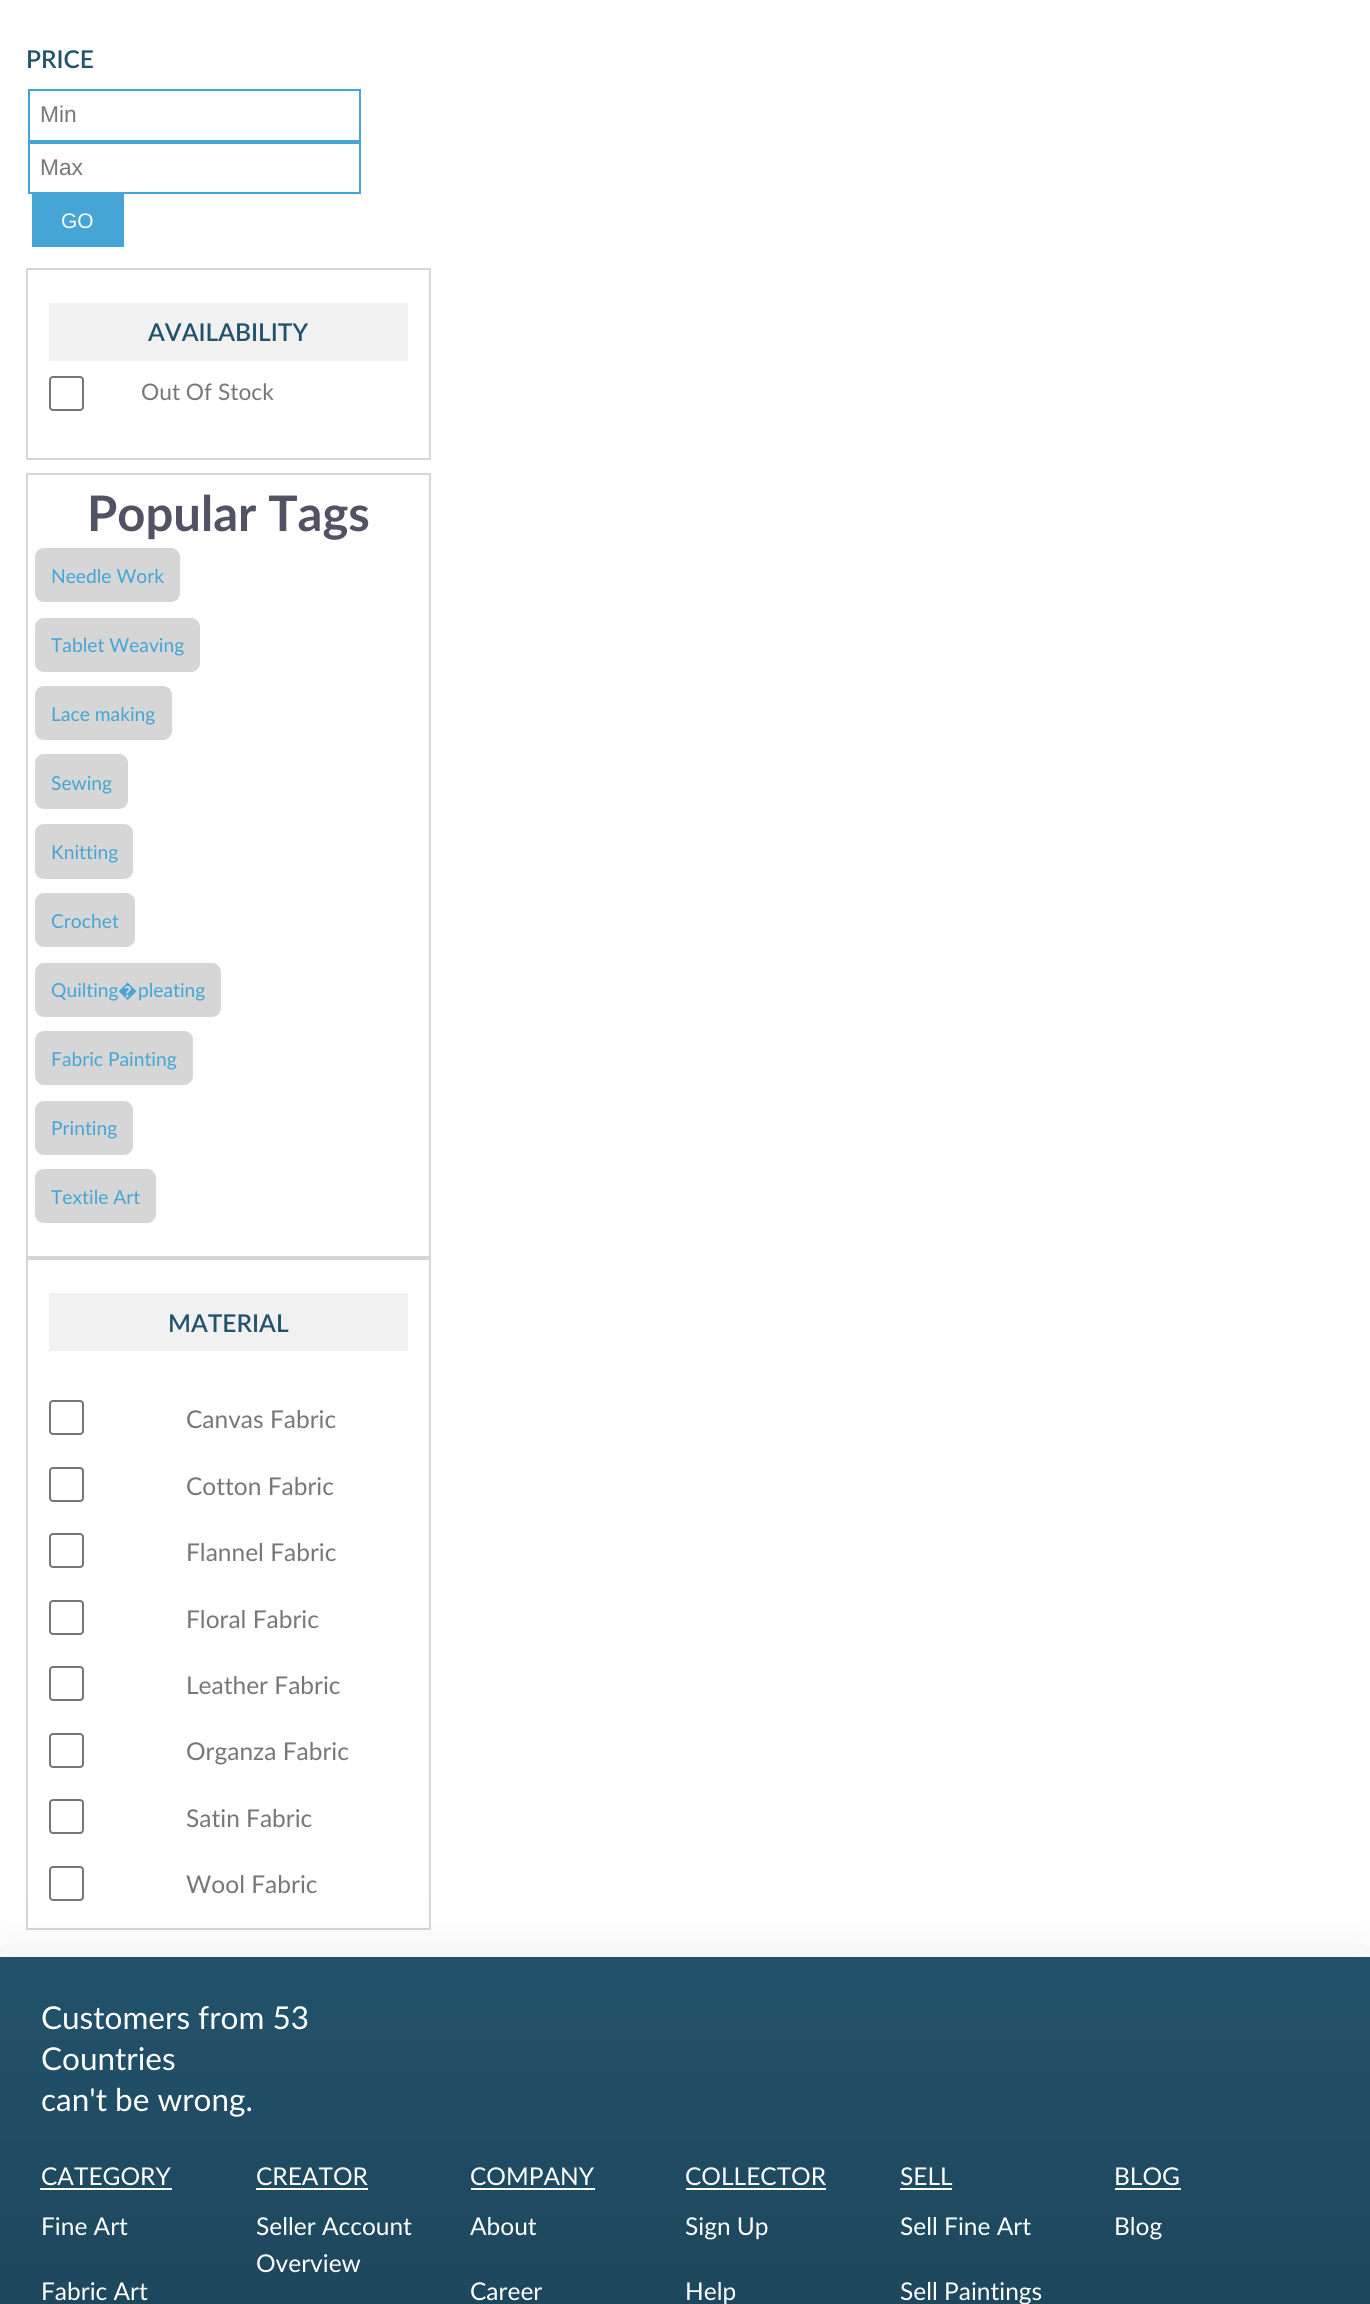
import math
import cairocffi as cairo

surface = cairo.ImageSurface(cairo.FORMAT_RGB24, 1370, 2304)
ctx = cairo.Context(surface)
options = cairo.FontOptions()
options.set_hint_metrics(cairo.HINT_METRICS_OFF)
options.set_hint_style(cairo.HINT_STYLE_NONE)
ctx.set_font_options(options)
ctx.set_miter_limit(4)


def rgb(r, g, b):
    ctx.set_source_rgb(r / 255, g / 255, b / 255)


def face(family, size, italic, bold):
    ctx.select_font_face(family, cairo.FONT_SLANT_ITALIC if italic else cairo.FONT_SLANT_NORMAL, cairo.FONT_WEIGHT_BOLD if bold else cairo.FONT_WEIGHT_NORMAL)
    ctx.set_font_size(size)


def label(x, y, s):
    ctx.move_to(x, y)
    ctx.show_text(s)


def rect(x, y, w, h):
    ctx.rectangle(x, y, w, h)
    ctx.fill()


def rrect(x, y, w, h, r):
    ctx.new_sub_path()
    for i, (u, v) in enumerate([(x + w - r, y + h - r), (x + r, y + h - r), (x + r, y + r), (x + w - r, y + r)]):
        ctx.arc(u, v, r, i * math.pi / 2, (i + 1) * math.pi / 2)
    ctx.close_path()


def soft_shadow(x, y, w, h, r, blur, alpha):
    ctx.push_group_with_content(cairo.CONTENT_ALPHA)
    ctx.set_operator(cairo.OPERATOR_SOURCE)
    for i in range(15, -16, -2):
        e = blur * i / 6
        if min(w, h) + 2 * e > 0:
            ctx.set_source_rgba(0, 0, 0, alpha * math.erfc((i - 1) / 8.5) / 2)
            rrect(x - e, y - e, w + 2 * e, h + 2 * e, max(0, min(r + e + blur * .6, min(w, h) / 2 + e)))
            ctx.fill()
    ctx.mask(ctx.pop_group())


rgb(255, 255, 255)
ctx.paint()
face('Lato SemiBold', 24.5, 0, 0)
rgb(34, 83, 107)
label(26, 68, 'PRICE')
ctx.rectangle(29, 90, 331, 51)
rgb(68, 165, 214)
ctx.stroke()
face('Liberation Sans', 22.75, 0, 0)
rgb(119, 119, 119)
label(40, 122, 'Min')
ctx.rectangle(29, 143, 331, 50)
rgb(68, 165, 214)
ctx.stroke()
rgb(119, 119, 119)
label(40, 175, 'Max')
rgb(68, 165, 214)
rect(32, 194, 92, 53)
face('Liberation Sans', 21, 0, 0)
rgb(255, 255, 255)
label(61, 228, 'GO')
ctx.rectangle(27, 269, 403, 190)
rgb(214, 214, 214)
ctx.stroke()
rgb(241, 241, 241)
rect(49, 303, 359, 58)
face('Lato SemiBold', 24.5, 0, 0)
rgb(34, 83, 107)
label(148, 341, 'AVAILABILITY')
rrect(50, 377, 33, 33, 3)
rgb(118, 118, 118)
ctx.stroke()
face('Lato', 22.75, 0, 0)
rgb(119, 119, 119)
label(141, 400, 'Out Of Stock')
ctx.rectangle(27, 474, 403, 783)
rgb(214, 214, 214)
ctx.stroke()
face('Lato', 49, 0, 1)
rgb(81, 83, 101)
label(87, 531, 'Popular Tags')
rgb(214, 214, 214)
rrect(35, 548, 145, 54, 9)
ctx.fill()
face('Lato', 19.25, 0, 0)
rgb(68, 165, 214)
label(51, 583, 'Needle Work')
rgb(214, 214, 214)
rrect(35, 618, 165, 54, 9)
ctx.fill()
rgb(68, 165, 214)
label(51, 652, 'Tablet Weaving')
rgb(214, 214, 214)
rrect(35, 686, 137, 54, 9)
ctx.fill()
rgb(68, 165, 214)
label(51, 721, 'Lace making')
rgb(214, 214, 214)
rrect(35, 754, 93, 55, 9)
ctx.fill()
rgb(68, 165, 214)
label(51, 790, 'Sewing')
rgb(214, 214, 214)
rrect(35, 824, 98, 55, 9)
ctx.fill()
rgb(68, 165, 214)
label(51, 859, 'Knitting')
rgb(214, 214, 214)
rrect(35, 893, 100, 54, 9)
ctx.fill()
rgb(68, 165, 214)
label(51, 928, 'Crochet')
rgb(214, 214, 214)
rrect(35, 963, 186, 54, 9)
ctx.fill()
rgb(68, 165, 214)
label(51, 997, 'Quilting')
face('Noto Sans', 19.25, 0, 0)
label(118, 997, '�')
face('Lato', 19.25, 0, 0)
label(138, 997, 'pleating')
rgb(214, 214, 214)
rrect(35, 1031, 158, 54, 9)
ctx.fill()
rgb(68, 165, 214)
label(51, 1066, 'Fabric Painting')
rgb(214, 214, 214)
rrect(35, 1101, 98, 54, 9)
ctx.fill()
rgb(68, 165, 214)
label(51, 1135, 'Printing')
rgb(214, 214, 214)
rrect(35, 1169, 121, 54, 9)
ctx.fill()
rgb(68, 165, 214)
label(51, 1204, 'Textile Art')
ctx.rectangle(27, 1259, 403, 670)
rgb(214, 214, 214)
ctx.stroke()
rgb(241, 241, 241)
rect(49, 1293, 359, 58)
face('Lato SemiBold', 24.5, 0, 0)
rgb(34, 83, 107)
label(168, 1332, 'MATERIAL')
rrect(50, 1401, 33, 33, 3)
rgb(118, 118, 118)
ctx.stroke()
face('Lato', 24.5, 0, 0)
rgb(119, 119, 119)
label(186, 1428, 'Canvas Fabric')
rrect(50, 1468, 33, 33, 3)
rgb(118, 118, 118)
ctx.stroke()
rgb(119, 119, 119)
label(186, 1495, 'Cotton Fabric')
rrect(50, 1534, 33, 33, 3)
rgb(118, 118, 118)
ctx.stroke()
rgb(119, 119, 119)
label(186, 1561, 'Flannel Fabric')
rrect(50, 1601, 33, 33, 3)
rgb(118, 118, 118)
ctx.stroke()
rgb(119, 119, 119)
label(186, 1628, 'Floral Fabric')
rrect(50, 1667, 33, 33, 3)
rgb(118, 118, 118)
ctx.stroke()
rgb(119, 119, 119)
label(186, 1694, 'Leather Fabric')
rrect(50, 1734, 33, 33, 3)
rgb(118, 118, 118)
ctx.stroke()
rgb(119, 119, 119)
label(186, 1760, 'Organza Fabric')
rrect(50, 1800, 33, 33, 3)
rgb(118, 118, 118)
ctx.stroke()
rgb(119, 119, 119)
label(186, 1827, 'Satin Fabric')
rrect(50, 1867, 33, 33, 3)
rgb(118, 118, 118)
ctx.stroke()
rgb(119, 119, 119)
label(186, 1893, 'Wool Fabric')
rgb(63, 66, 87)
soft_shadow(0, 1957, 1370, 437, 0, 30, 0.1)
gradient = cairo.LinearGradient(685, 1957, 685, 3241)
gradient.add_color_stop_rgba(0, 0.133, 0.322, 0.42, 1)
gradient.add_color_stop_rgba(1, 0.067, 0.165, 0.212, 1)
ctx.set_source(gradient)
rect(0, 1957, 1370, 347)
face('Lato', 31.5, 0, 0)
rgb(255, 255, 255)
label(41, 2029, 'Customers from 53')
label(41, 2070, 'Countries')
label(41, 2111, 'can\'t be wrong.')
face('Lato', 24.5, 0, 0)
label(41, 2185, 'CATEGORY')
rect(40, 2188, 132, 2)
label(41, 2235, 'Fine Art')
label(41, 2300, 'Fabric Art')
label(256, 2185, 'CREATOR')
rect(256, 2188, 112, 2)
label(256, 2235, 'Seller Account')
label(256, 2272, 'Overview')
label(470, 2185, 'COMPANY')
rect(471, 2188, 124, 2)
label(470, 2235, 'About')
label(470, 2300, 'Career')
label(685, 2185, 'COLLECTOR')
rect(686, 2188, 140, 2)
label(685, 2235, 'Sign Up')
label(685, 2300, 'Help')
label(900, 2185, 'SELL')
rect(900, 2188, 52, 2)
label(900, 2235, 'Sell Fine Art')
label(900, 2300, 'Sell Paintings')
label(1114, 2185, 'BLOG')
rect(1115, 2188, 66, 2)
label(1114, 2235, 'Blog')
surface.write_to_png('render.png')
